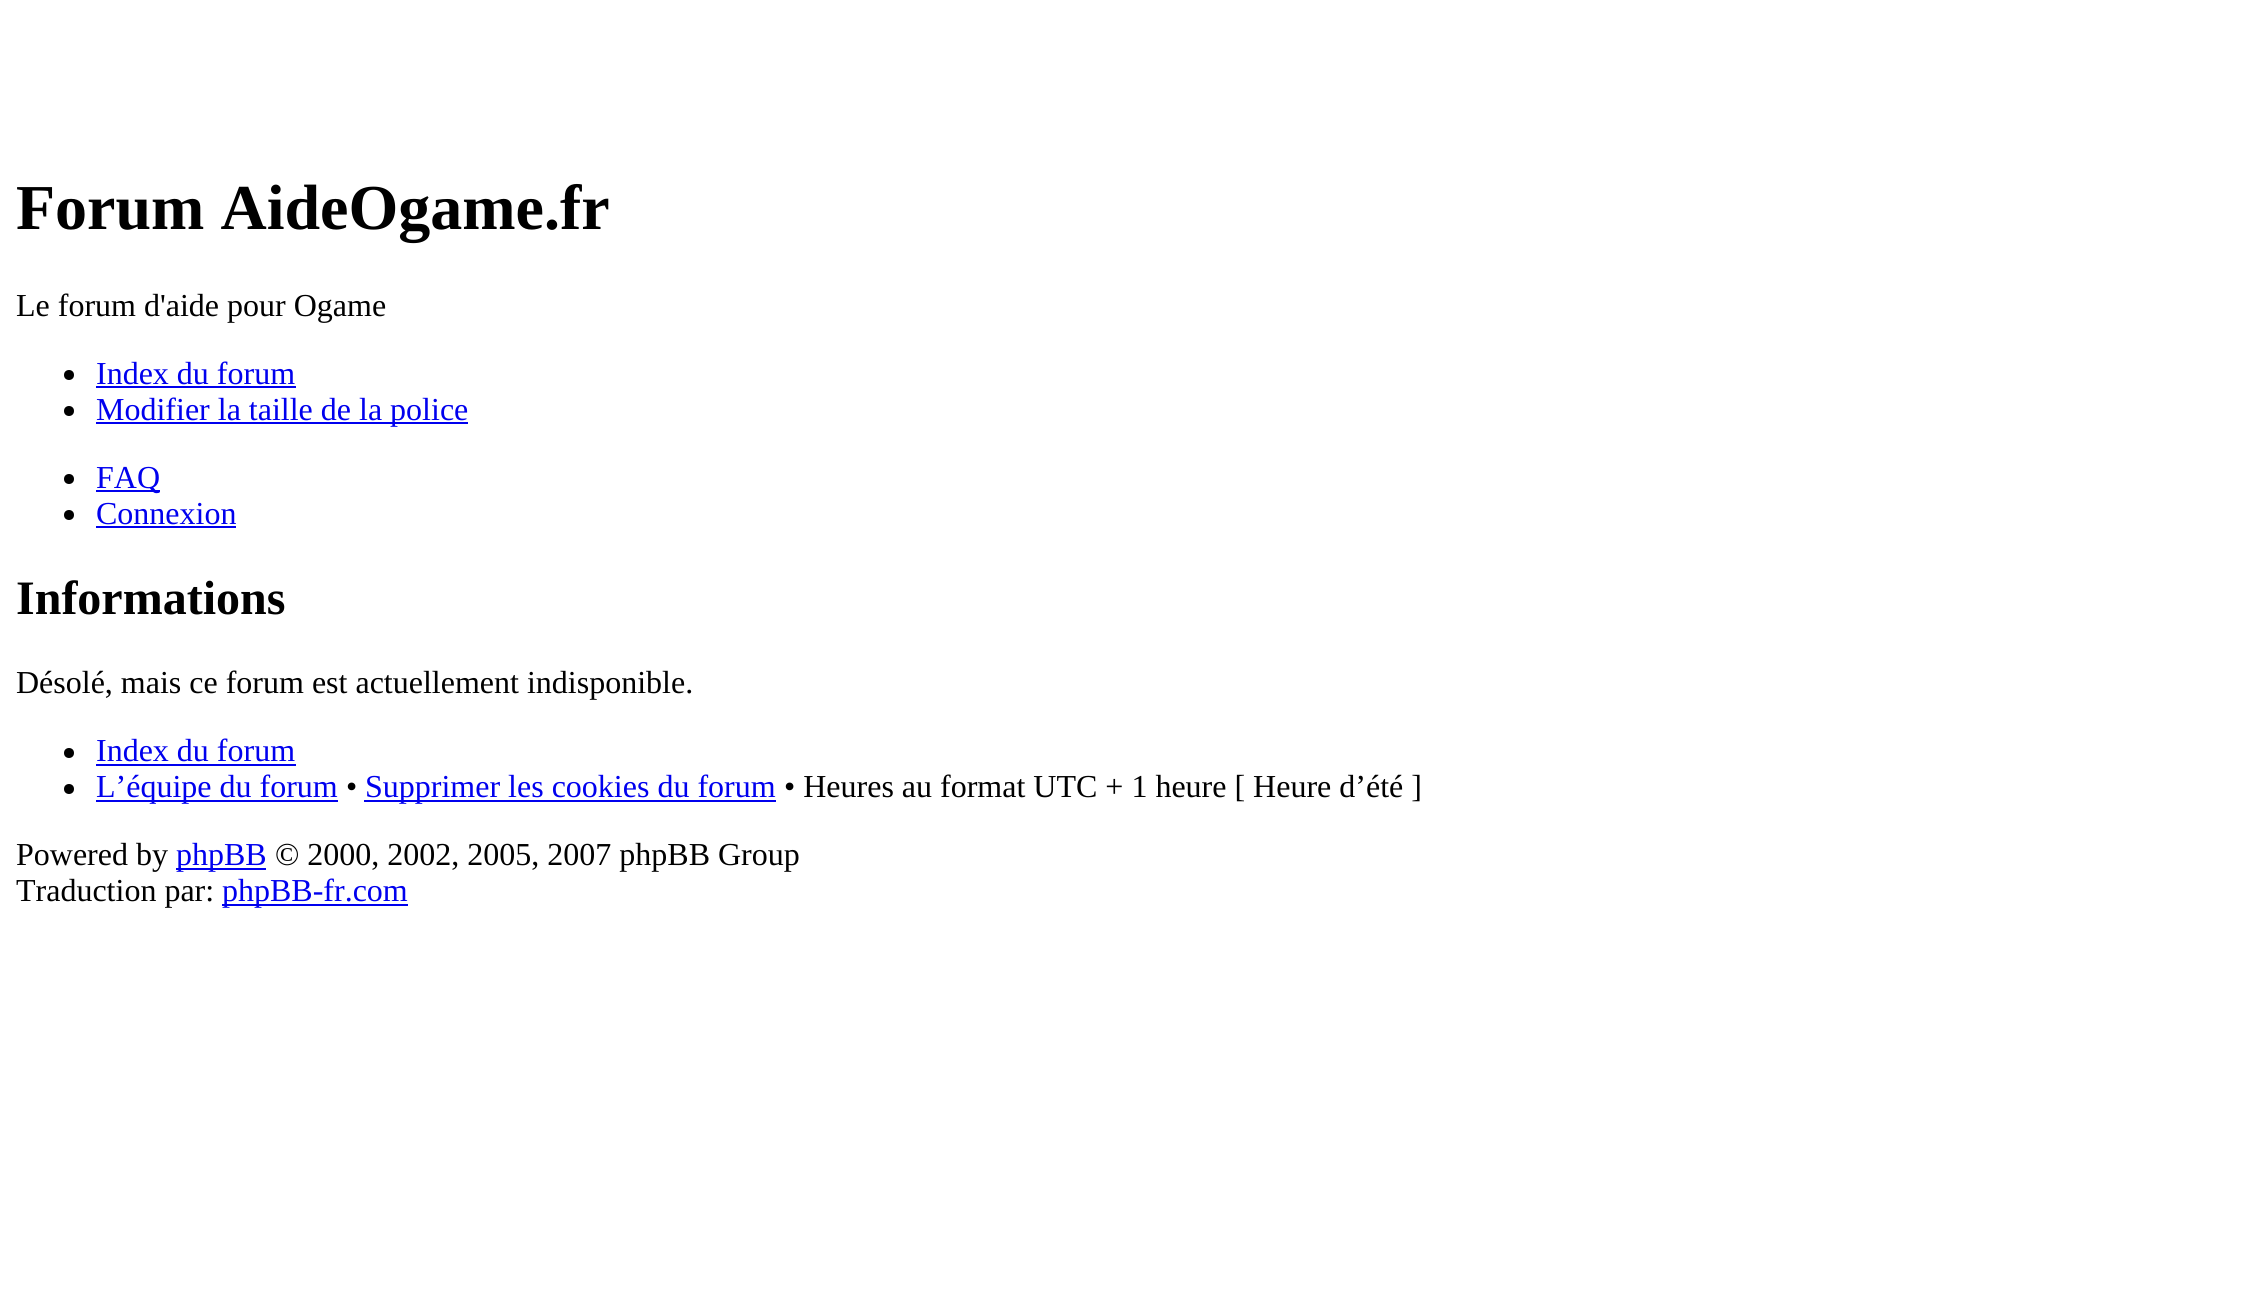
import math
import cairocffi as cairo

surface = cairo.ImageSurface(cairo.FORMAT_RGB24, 2262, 1296)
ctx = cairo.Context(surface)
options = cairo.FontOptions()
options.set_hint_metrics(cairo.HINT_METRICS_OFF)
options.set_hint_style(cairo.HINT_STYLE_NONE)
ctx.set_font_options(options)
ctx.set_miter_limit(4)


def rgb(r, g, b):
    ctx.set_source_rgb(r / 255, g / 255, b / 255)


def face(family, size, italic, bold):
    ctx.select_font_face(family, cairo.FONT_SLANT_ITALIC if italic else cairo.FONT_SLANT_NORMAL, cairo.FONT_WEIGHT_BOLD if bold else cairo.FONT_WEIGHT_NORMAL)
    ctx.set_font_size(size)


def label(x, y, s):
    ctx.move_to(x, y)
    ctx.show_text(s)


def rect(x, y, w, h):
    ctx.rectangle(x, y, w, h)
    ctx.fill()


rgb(255, 255, 255)
ctx.paint()
face('Liberation Serif', 64, 0, 1)
rgb(0, 0, 0)
label(16, 229, 'Forum AideOgame.fr')
face('Liberation Serif', 32, 0, 0)
label(16, 316, 'Le forum d\'aide pour Ogame')
ctx.new_path()
ctx.arc(69, 375, 5, 0, 2 * math.pi)
ctx.fill()
rgb(0, 0, 238)
label(96, 384, 'Index du forum')
rect(96, 386, 200, 2)
rgb(0, 0, 0)
ctx.new_path()
ctx.arc(69, 411, 5, 0, 2 * math.pi)
ctx.fill()
rgb(0, 0, 238)
rect(96, 422, 372, 2)
label(96, 420, 'Modifier la taille de la police')
rgb(0, 0, 0)
ctx.new_path()
ctx.arc(69, 479, 5, 0, 2 * math.pi)
ctx.fill()
rgb(0, 0, 238)
rect(96, 490, 64, 2)
label(96, 488, 'FAQ')
rgb(0, 0, 0)
ctx.new_path()
ctx.arc(69, 515, 5, 0, 2 * math.pi)
ctx.fill()
rgb(0, 0, 238)
label(96, 524, 'Connexion')
rect(96, 526, 140, 2)
face('Liberation Serif', 48, 0, 1)
rgb(0, 0, 0)
label(16, 614, 'Informations')
face('Liberation Serif', 32, 0, 0)
label(16, 693, 'Désolé, mais ce forum est actuellement indisponible.')
ctx.new_path()
ctx.arc(69, 753, 5, 0, 2 * math.pi)
ctx.fill()
rgb(0, 0, 238)
label(96, 761, 'Index du forum')
rect(96, 764, 200, 2)
rgb(0, 0, 0)
ctx.new_path()
ctx.arc(69, 789, 5, 0, 2 * math.pi)
ctx.fill()
rgb(0, 0, 238)
rect(96, 800, 242, 2)
label(96, 797, 'L’équipe du forum')
rgb(0, 0, 0)
label(346, 797, '•')
rgb(0, 0, 238)
rect(364, 800, 412, 2)
label(365, 797, 'Supprimer les cookies du forum')
rgb(0, 0, 0)
label(784, 797, '• Heures au format UTC + 1 heure [ Heure d’été ]')
label(16, 865, 'Powered by')
rgb(0, 0, 238)
rect(176, 868, 90, 2)
label(176, 865, 'phpBB')
rgb(0, 0, 0)
label(275, 865, '© 2000, 2002, 2005, 2007 phpBB Group')
label(16, 901, 'Traduction par:')
rgb(0, 0, 238)
rect(222, 904, 186, 2)
label(222, 901, 'phpBB-fr.com')
surface.write_to_png('render.png')
